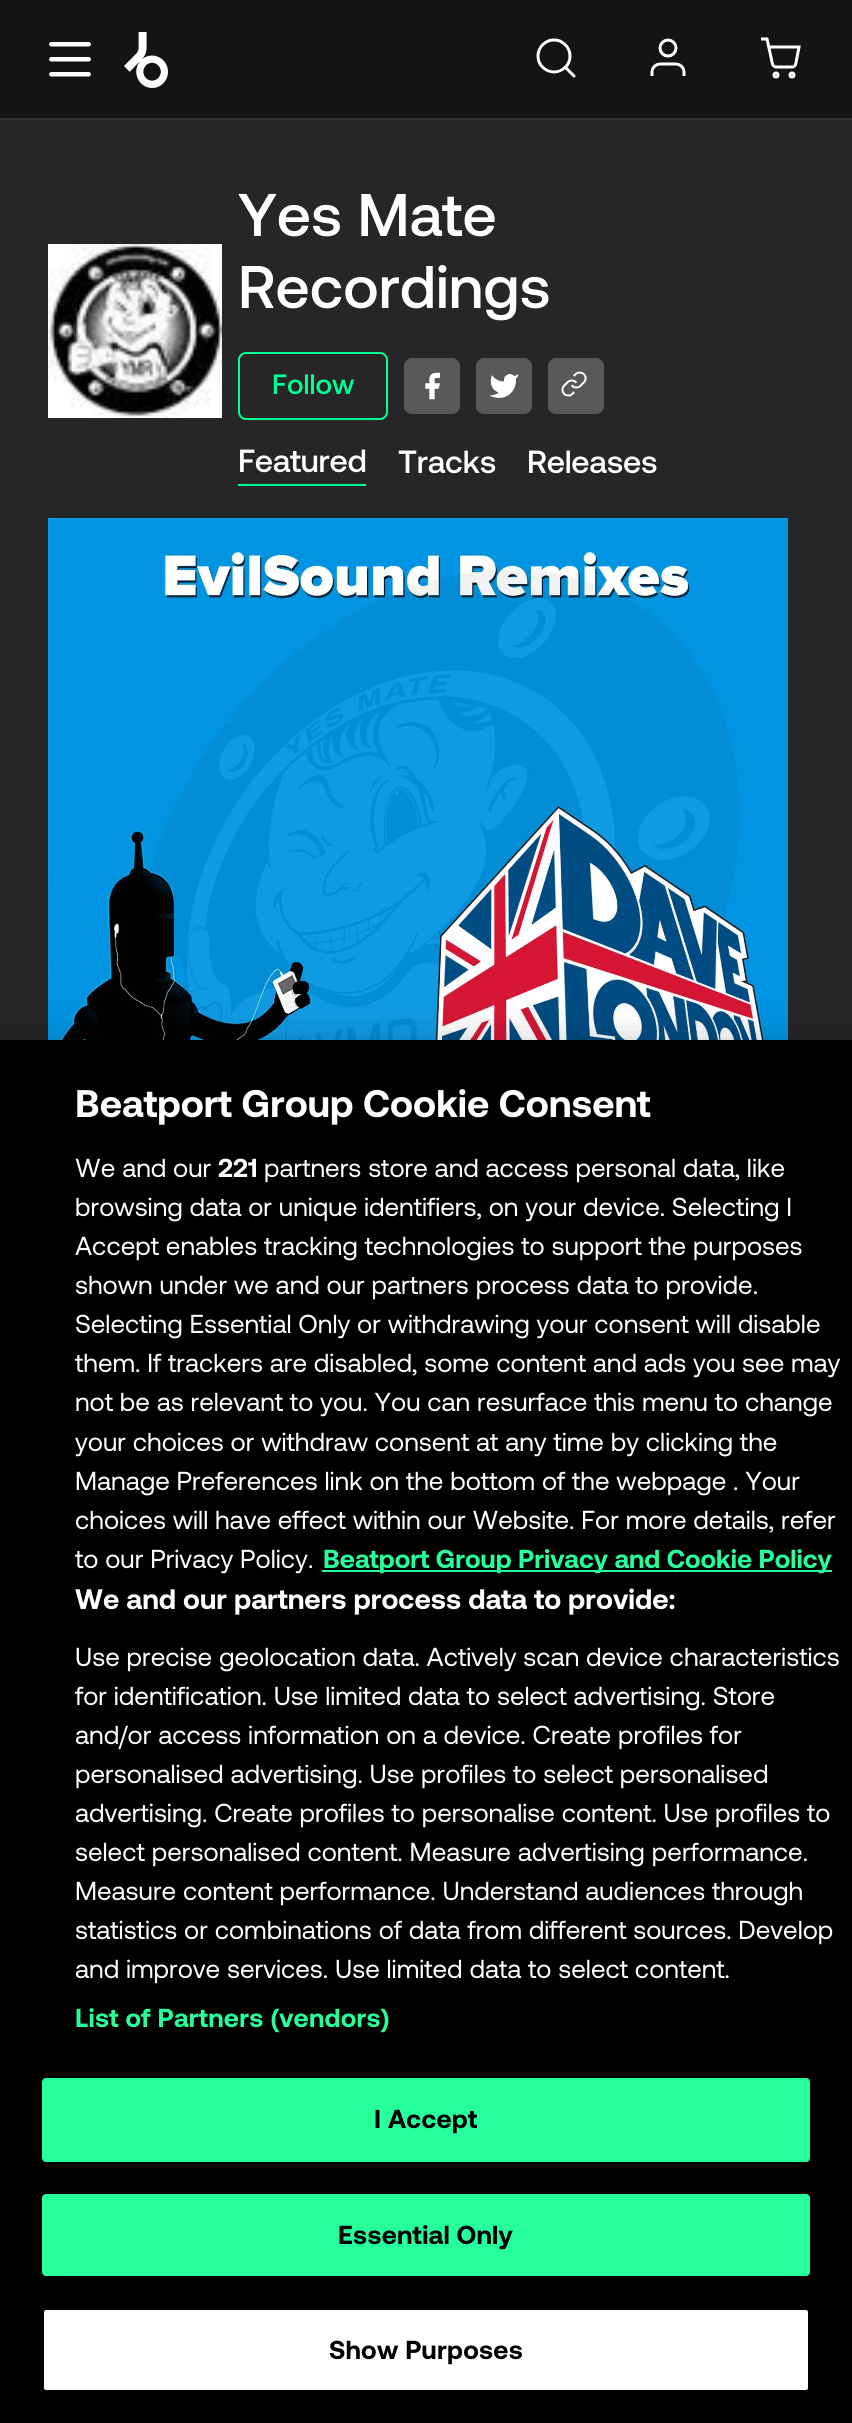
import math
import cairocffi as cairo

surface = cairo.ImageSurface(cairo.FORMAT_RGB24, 852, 2423)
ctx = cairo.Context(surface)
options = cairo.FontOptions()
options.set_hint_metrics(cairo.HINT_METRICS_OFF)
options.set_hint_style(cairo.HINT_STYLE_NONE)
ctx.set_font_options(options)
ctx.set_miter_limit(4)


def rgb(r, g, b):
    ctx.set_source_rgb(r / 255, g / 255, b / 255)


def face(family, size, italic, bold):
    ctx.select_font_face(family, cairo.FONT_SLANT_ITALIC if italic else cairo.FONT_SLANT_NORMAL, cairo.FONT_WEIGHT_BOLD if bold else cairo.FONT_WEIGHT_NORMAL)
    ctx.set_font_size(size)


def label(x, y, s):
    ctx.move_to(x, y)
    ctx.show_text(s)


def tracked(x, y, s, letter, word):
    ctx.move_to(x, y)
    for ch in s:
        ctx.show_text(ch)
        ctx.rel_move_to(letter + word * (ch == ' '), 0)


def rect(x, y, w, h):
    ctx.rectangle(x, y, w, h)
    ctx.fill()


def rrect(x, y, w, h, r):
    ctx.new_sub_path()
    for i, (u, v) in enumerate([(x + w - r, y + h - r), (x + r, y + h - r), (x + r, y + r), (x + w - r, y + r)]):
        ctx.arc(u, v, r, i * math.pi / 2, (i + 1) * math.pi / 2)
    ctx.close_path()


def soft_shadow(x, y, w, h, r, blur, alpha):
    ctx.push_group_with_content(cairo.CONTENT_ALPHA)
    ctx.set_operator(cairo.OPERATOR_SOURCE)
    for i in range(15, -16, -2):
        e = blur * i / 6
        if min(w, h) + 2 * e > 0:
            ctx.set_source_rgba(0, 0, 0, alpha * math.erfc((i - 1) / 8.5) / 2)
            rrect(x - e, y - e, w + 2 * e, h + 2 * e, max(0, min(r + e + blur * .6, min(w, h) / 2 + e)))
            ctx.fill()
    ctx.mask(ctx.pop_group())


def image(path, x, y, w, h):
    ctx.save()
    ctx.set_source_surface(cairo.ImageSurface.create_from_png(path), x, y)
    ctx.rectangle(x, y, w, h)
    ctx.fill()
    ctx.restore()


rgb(38, 38, 38)
ctx.paint()
rgb(20, 20, 20)
rect(0, 0, 852, 118)
rgb(51, 51, 51)
rect(0, 118, 852, 2)
image('image0.png', 49, 42, 42, 35)
image('image1.png', 124, 32, 44, 56)
image('image2.png', 536, 38, 40, 40)
image('image3.png', 650, 38, 36, 38)
image('image4.png', 761, 37, 40, 42)
image('image5.png', 48, 244, 174, 174)
face('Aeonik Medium', 60, 0, 0)
rgb(255, 255, 255)
label(238, 236, 'Yes Mate')
label(238, 308, 'Recordings')
rrect(239, 353, 148, 66, 7)
rgb(1, 255, 149)
ctx.stroke()
face('Aeonik Medium', 28, 0, 0)
label(272, 394, 'Follow')
rgb(88, 88, 88)
rrect(404, 358, 56, 56, 8)
ctx.fill()
image('image6.png', 425, 372, 15, 28)
rrect(476, 358, 56, 56, 8)
ctx.fill()
image('image7.png', 489, 374, 30, 24)
rrect(548, 358, 56, 56, 8)
ctx.fill()
image('image8.png', 561, 371, 26, 26)
rgb(1, 255, 149)
rect(238, 484, 128, 2)
face('Aeonik Medium', 32, 0, 0)
rgb(255, 255, 255)
tracked(238, 472, 'Featured', -0.25, 0)
tracked(398, 473, 'Tracks', -0.25, 0)
tracked(527, 473, 'Releases', -0.25, 0)
image('image9.png', 48, 518, 740, 522)
rgb(0, 0, 0)
soft_shadow(0, 1040, 852, 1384, 0, 18, 0.2)
rgb(0, 0, 0)
rect(0, 1040, 852, 1383)
face('Aeonik', 38.4, 0, 1)
rgb(255, 255, 255)
label(75, 1117, 'Beatport Group Cookie Consent')
face('Aeonik', 26, 0, 0)
label(75, 1177, 'We and our')
face('Aeonik', 26, 0, 1)
label(218, 1177, '221')
face('Aeonik', 26, 0, 0)
label(264, 1177, 'partners store and access personal data, like')
label(75, 1216, 'browsing data or unique identifiers, on your device. Selecting I')
label(75, 1255, 'Accept enables tracking technologies to support the purposes')
label(75, 1294, 'shown under we and our partners process data to provide.')
label(75, 1333, 'Selecting Essential Only or withdrawing your consent will disable')
label(75, 1372, 'them. If trackers are disabled, some content and ads you see may')
label(75, 1411, 'not be as relevant to you. You can resurface this menu to change')
label(75, 1451, 'your choices or withdraw consent at any time by clicking the')
label(75, 1490, 'Manage Preferences link on the bottom of the webpage . Your')
label(75, 1529, 'choices will have effect within our Website. For more details, refer')
label(75, 1568, 'to our Privacy Policy.')
rgb(39, 255, 156)
rect(322, 1570, 510, 2)
face('Aeonik', 26, 0, 1)
label(323, 1568, 'Beatport Group Privacy and Cookie Policy')
face('Aeonik', 28.2, 0, 1)
rgb(255, 255, 255)
label(75, 1609, 'We and our partners process data to provide:')
face('Aeonik', 26, 0, 0)
label(75, 1666, 'Use precise geolocation data. Actively scan device characteristics')
label(75, 1705, 'for identification. Use limited data to select advertising. Store')
label(75, 1744, 'and/or access information on a device. Create profiles for')
label(75, 1783, 'personalised advertising. Use profiles to select personalised')
label(75, 1822, 'advertising. Create profiles to personalise content. Use profiles to')
tracked(75, 1861, 'select personalised content. Measure advertising performance.', 0, 0.25)
label(75, 1900, 'Measure content performance. Understand audiences through')
label(75, 1939, 'statistics or combinations of data from different sources. Develop')
label(75, 1978, 'and improve services. Use limited data to select content.')
face('Aeonik', 26, 0, 1)
rgb(39, 255, 156)
tracked(75, 2027, 'List of Partners (vendors)', 0.25, 0)
rrect(43, 2079, 766, 82, 3)
ctx.fill_preserve()
ctx.stroke()
rgb(0, 0, 0)
tracked(374, 2128, 'I Accept', 0.25, 0)
rgb(39, 255, 156)
rrect(43, 2195, 766, 80, 3)
ctx.fill_preserve()
ctx.stroke()
rgb(0, 0, 0)
tracked(338, 2244, 'Essential Only', 0.25, 0)
rgb(255, 255, 255)
rrect(43, 2309, 766, 82, 3)
ctx.fill_preserve()
rgb(0, 0, 0)
ctx.stroke()
tracked(329, 2359, 'Show Purposes', 0.25, 0)
surface.write_to_png('render.png')
